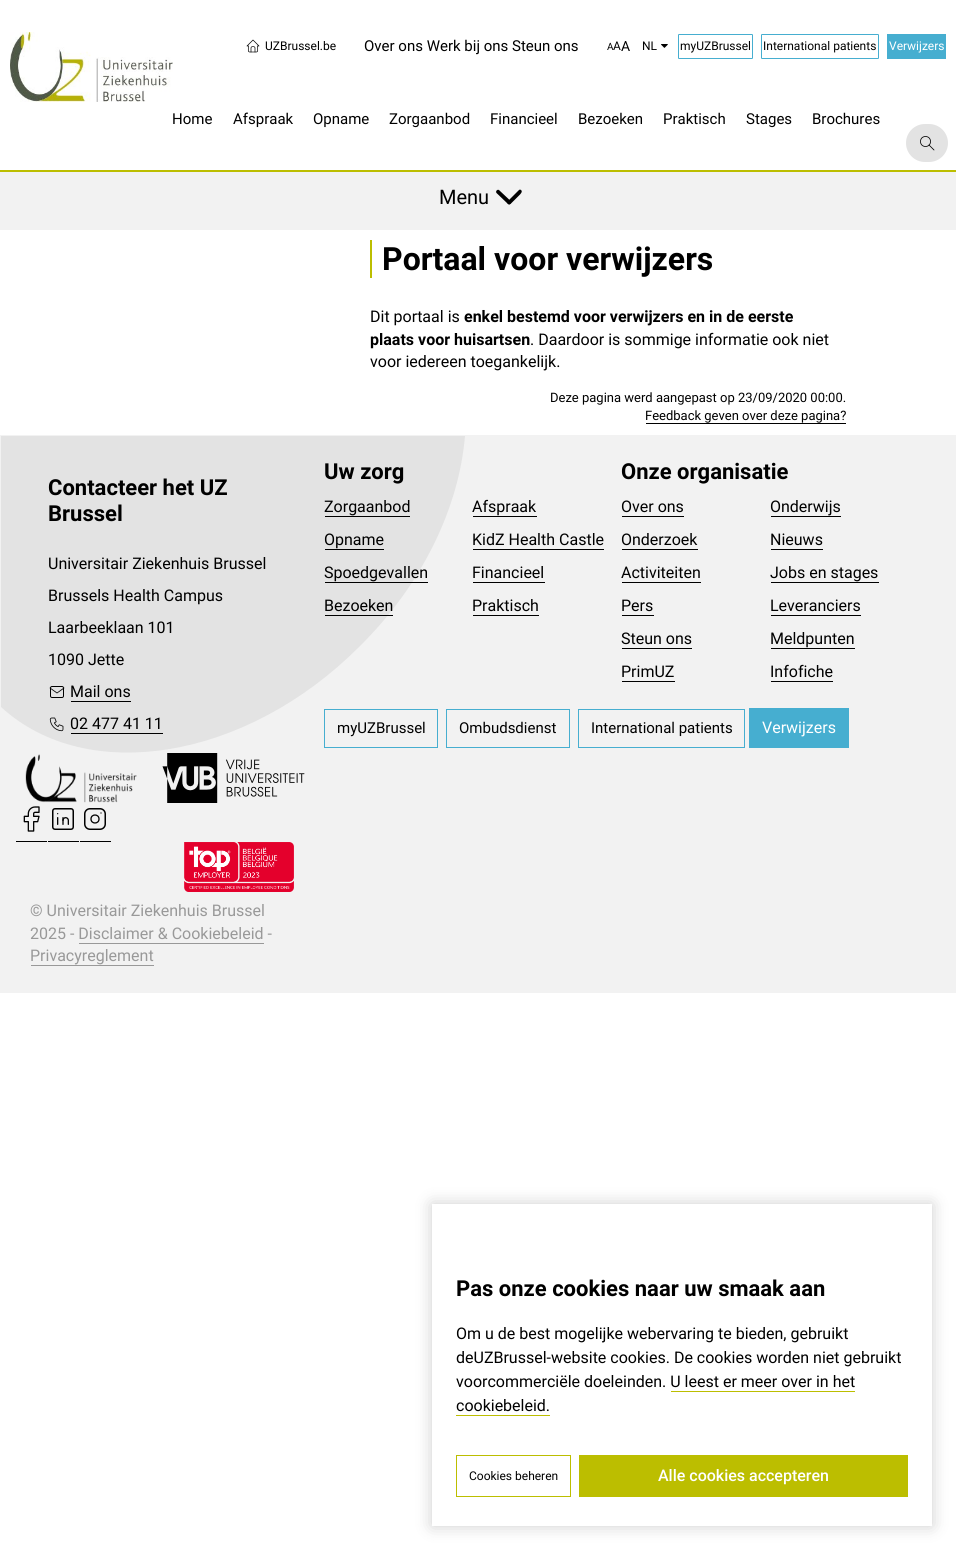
import math
import cairocffi as cairo

surface = cairo.ImageSurface(cairo.FORMAT_RGB24, 956, 1550)
ctx = cairo.Context(surface)
options = cairo.FontOptions()
options.set_hint_metrics(cairo.HINT_METRICS_OFF)
options.set_hint_style(cairo.HINT_STYLE_NONE)
ctx.set_font_options(options)
ctx.set_miter_limit(4)


def rgb(r, g, b):
    ctx.set_source_rgb(r / 255, g / 255, b / 255)


def face(family, size, italic, bold):
    ctx.select_font_face(family, cairo.FONT_SLANT_ITALIC if italic else cairo.FONT_SLANT_NORMAL, cairo.FONT_WEIGHT_BOLD if bold else cairo.FONT_WEIGHT_NORMAL)
    ctx.set_font_size(size)


def label(x, y, s):
    ctx.move_to(x, y)
    ctx.show_text(s)


def rect(x, y, w, h):
    ctx.rectangle(x, y, w, h)
    ctx.fill()


def rrect(x, y, w, h, r):
    ctx.new_sub_path()
    for i, (u, v) in enumerate([(x + w - r, y + h - r), (x + r, y + h - r), (x + r, y + r), (x + w - r, y + r)]):
        ctx.arc(u, v, r, i * math.pi / 2, (i + 1) * math.pi / 2)
    ctx.close_path()


def soft_shadow(x, y, w, h, r, blur, alpha):
    ctx.push_group_with_content(cairo.CONTENT_ALPHA)
    ctx.set_operator(cairo.OPERATOR_SOURCE)
    for i in range(15, -16, -2):
        e = blur * i / 6
        if min(w, h) + 2 * e > 0:
            ctx.set_source_rgba(0, 0, 0, alpha * math.erfc((i - 1) / 8.5) / 2)
            rrect(x - e, y - e, w + 2 * e, h + 2 * e, max(0, min(r + e + blur * .6, min(w, h) / 2 + e)))
            ctx.fill()
    ctx.mask(ctx.pop_group())


def image(path, x, y, w, h):
    ctx.save()
    ctx.set_source_surface(cairo.ImageSurface.create_from_png(path), x, y)
    ctx.rectangle(x, y, w, h)
    ctx.fill()
    ctx.restore()


rgb(255, 255, 255)
ctx.paint()
image('image0.png', 10, 32, 163, 70)
image('image1.png', 246, 39, 14, 14)
face('Roboto', 12, 0, 0)
rgb(0, 0, 0)
label(265, 50, 'UZBrussel.be')
face('Roboto', 15, 0, 0)
label(364, 51, 'Over ons Werk bij ons Steun ons')
face('Roboto', 10, 0, 0)
label(607, 50, 'A')
face('Roboto', 12, 0, 0)
label(613, 50, 'A')
face('Roboto', 14, 0, 0)
label(621, 51, 'A')
face('Roboto', 12, 0, 0)
label(642, 50, 'NL')
image('image2.png', 661, 44, 7, 4)
rrect(678.5, 34.5, 74, 24, 0.5)
rgb(70, 174, 208)
ctx.set_line_width(1)
ctx.stroke()
rgb(0, 0, 0)
label(680, 50, 'myUZBrussel')
rrect(761.5, 34.5, 117, 24, 0.5)
rgb(70, 174, 208)
ctx.stroke()
rgb(0, 0, 0)
label(763, 50, 'International patients')
rgb(70, 174, 208)
rect(887, 34, 59, 25)
rgb(255, 255, 255)
label(889, 50, 'Verwijzers')
rgb(188, 190, 0)
rect(0, 170, 956, 2)
face('Roboto', 15, 0, 0)
rgb(0, 0, 0)
label(172, 124, 'Home')
label(233, 124, 'Afspraak')
label(313, 124, 'Opname')
label(389, 124, 'Zorgaanbod')
label(490, 124, 'Financieel')
label(578, 124, 'Bezoeken')
label(663, 124, 'Praktisch')
label(746, 124, 'Stages')
label(812, 124, 'Brochures')
rgb(227, 227, 227)
rrect(906, 124, 42, 38, 19)
ctx.fill()
ctx.arc(925.5, 141.5, 5, 0, 2 * math.pi)
rgb(0, 0, 0)
ctx.set_line_width(0.8)
ctx.stroke()
ctx.new_path()
ctx.move_to(934, 150)
ctx.line_to(929, 145)
ctx.set_line_cap(cairo.LINE_CAP_ROUND)
ctx.set_line_join(cairo.LINE_JOIN_ROUND)
ctx.stroke()
rgb(242, 242, 242)
rect(0, 172, 956, 58)
face('Roboto', 20, 0, 0)
rgb(0, 0, 0)
label(439, 204, 'Menu')
ctx.new_path()
ctx.move_to(499.5, 190.5)
ctx.line_to(508.5, 199)
ctx.curve_to(509.5, 200, 512, 202.5, 510, 204)
ctx.curve_to(509.5, 204.5, 508.5, 204.5, 508, 204)
ctx.line_to(496.5, 193)
ctx.curve_to(495, 191, 498, 188.5, 499.5, 190.5)
ctx.close_path()
ctx.fill()
ctx.new_path()
ctx.move_to(508, 201)
ctx.line_to(519, 190)
ctx.curve_to(519.5, 189.5, 520.5, 189.5, 521, 190)
ctx.curve_to(523, 191.5, 520.5, 194, 519.5, 195)
ctx.line_to(510.5, 204)
ctx.curve_to(508.5, 205.5, 506, 202.5, 508, 201)
ctx.close_path()
ctx.fill()
rgb(188, 190, 0)
rect(370, 240, 2, 38)
face('Roboto', 32, 0, 1)
rgb(0, 0, 0)
label(382, 270, 'Portaal voor verwijzers')
face('Roboto', 16, 0, 0)
label(370, 322, 'Dit portaal is')
face('Roboto', 16, 0, 1)
label(464, 322, 'enkel bestemd voor verwijzers en in de eerste')
label(370, 345, 'plaats voor huisartsen')
face('Roboto', 16, 0, 0)
label(530, 345, '. Daardoor is sommige informatie ook niet')
label(370, 367, 'voor iedereen toegankelijk.')
face('Roboto', 13, 0, 0)
label(550, 402, 'Deze pagina werd aangepast op 23/09/2020 00:00.')
label(645, 420, 'Feedback geven over deze pagina?')
rect(646, 423, 200, 1)
rgb(242, 242, 242)
rect(0, 435, 956, 558)
rgb(227, 227, 227)
ctx.new_path()
ctx.move_to(1, 707)
ctx.curve_to(87, 786, 246, 760, 359, 647)
ctx.curve_to(423, 584, 459, 507, 465, 436)
ctx.line_to(1, 436)
ctx.close_path()
ctx.fill()
face('Roboto', 22, 0, 1)
rgb(0, 0, 0)
label(48, 495, 'Contacteer het UZ')
label(48, 521, 'Brussel')
face('Roboto', 16, 0, 0)
label(48, 569, 'Universitair Ziekenhuis Brussel')
label(48, 601, 'Brussels Health Campus')
label(48, 633, 'Laarbeeklaan 101')
label(48, 665, '1090 Jette')
rrect(50.5, 686.5, 13, 11, 1.5)
ctx.set_line_width(1)
ctx.set_line_cap(cairo.LINE_CAP_BUTT)
ctx.set_line_join(cairo.LINE_JOIN_MITER)
ctx.stroke()
ctx.new_path()
ctx.move_to(50, 688)
ctx.line_to(57, 693)
ctx.line_to(64, 688)
ctx.set_line_width(0.8)
ctx.set_line_cap(cairo.LINE_CAP_ROUND)
ctx.set_line_join(cairo.LINE_JOIN_ROUND)
ctx.stroke()
label(70, 697, 'Mail ons')
rect(71, 701, 60, 1)
image('image3.png', 49, 717, 15, 15)
label(70, 729, '02 477 41 11')
rect(71, 733, 92, 1)
face('Roboto', 22, 0, 1)
label(324, 479, 'Uw zorg')
face('Roboto', 16, 0, 0)
label(324, 512, 'Zorgaanbod')
rect(325, 516, 85, 1)
label(472, 512, 'Afspraak')
rect(473, 516, 64, 1)
label(324, 545, 'Opname')
rect(325, 549, 59, 1)
label(472, 545, 'KidZ Health Castle')
rect(473, 549, 131, 1)
label(324, 578, 'Spoedgevallen')
rect(325, 582, 103, 1)
label(472, 578, 'Financieel')
rect(473, 582, 72, 1)
label(324, 611, 'Bezoeken')
rect(325, 615, 68, 1)
label(472, 611, 'Praktisch')
rect(473, 615, 66, 1)
face('Roboto', 22, 0, 1)
label(621, 479, 'Onze organisatie')
face('Roboto', 16, 0, 0)
label(621, 512, 'Over ons')
rect(622, 516, 62, 1)
label(770, 512, 'Onderwijs')
rect(771, 516, 70, 1)
label(621, 545, 'Onderzoek')
rect(622, 549, 76, 1)
label(770, 545, 'Nieuws')
rect(771, 549, 52, 1)
label(621, 578, 'Activiteiten')
rect(622, 582, 79, 1)
label(770, 578, 'Jobs en stages')
rect(771, 582, 108, 1)
label(621, 611, 'Pers')
rect(622, 615, 32, 1)
label(770, 611, 'Leveranciers')
rect(771, 615, 90, 1)
label(621, 644, 'Steun ons')
rect(622, 648, 70, 1)
label(770, 644, 'Meldpunten')
rect(771, 648, 84, 1)
label(621, 677, 'PrimUZ')
rect(622, 681, 53, 1)
label(770, 677, 'Infofiche')
rect(771, 681, 62, 1)
ctx.rectangle(324.5, 709.5, 113, 38)
rgb(70, 174, 208)
ctx.set_line_width(1)
ctx.set_line_cap(cairo.LINE_CAP_BUTT)
ctx.set_line_join(cairo.LINE_JOIN_MITER)
ctx.stroke()
face('Roboto', 15, 0, 0)
rgb(0, 0, 0)
label(337, 733, 'myUZBrussel')
ctx.rectangle(446.5, 709.5, 123, 38)
rgb(70, 174, 208)
ctx.stroke()
rgb(0, 0, 0)
label(459, 733, 'Ombudsdienst')
ctx.rectangle(578.5, 709.5, 166, 38)
rgb(70, 174, 208)
ctx.stroke()
rgb(0, 0, 0)
label(591, 733, 'International patients')
rgb(70, 174, 208)
rect(749, 708, 100, 40)
face('Roboto', 16, 0, 0)
rgb(255, 255, 255)
label(762, 733, 'Verwijzers')
image('image4.png', 25, 754, 112, 49)
image('image5.png', 162, 753, 143, 50)
rgb(0, 0, 0)
rect(16, 841, 31, 1)
image('image6.png', 23, 806, 17, 26)
rect(48, 841, 31, 1)
image('image7.png', 52, 808, 22, 22)
rect(80, 841, 31, 1)
rrect(84.75, 808.75, 20.5, 20.5, 5.25)
ctx.set_line_width(1.5)
ctx.stroke()
ctx.new_path()
ctx.move_to(101, 813)
ctx.line_to(101, 813)
ctx.set_line_width(1.3)
ctx.set_line_cap(cairo.LINE_CAP_ROUND)
ctx.set_line_join(cairo.LINE_JOIN_ROUND)
ctx.stroke()
ctx.arc(95, 819, 4, 0, 2 * math.pi)
ctx.set_line_cap(cairo.LINE_CAP_BUTT)
ctx.set_line_join(cairo.LINE_JOIN_MITER)
ctx.stroke()
image('image8.png', 184, 842, 110, 50)
rgb(153, 153, 153)
label(30, 916, '© Universitair Ziekenhuis Brussel')
label(30, 939, '2025 - Disclaimer & Cookiebeleid -')
rect(79, 943, 185, 1)
label(30, 961, 'Privacyreglement')
rect(31, 965, 123, 1)
ctx.save()
ctx.set_fill_rule(cairo.FILL_RULE_EVEN_ODD)
ctx.new_path()
ctx.move_to(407, 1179)
ctx.line_to(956, 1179)
ctx.line_to(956, 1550)
ctx.line_to(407, 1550)
ctx.close_path()
ctx.move_to(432, 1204)
ctx.line_to(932, 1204)
ctx.line_to(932, 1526)
ctx.line_to(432, 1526)
ctx.close_path()
ctx.clip()
rgb(0, 0, 0)
soft_shadow(432, 1204, 500, 322, 0, 8, 0.2)
ctx.restore()
face('Roboto', 22, 0, 1)
rgb(0, 0, 0)
label(456, 1296, 'Pas onze cookies naar uw smaak aan')
face('Roboto', 16, 0, 0)
label(456, 1339, 'Om u de best mogelijke webervaring te bieden, gebruikt')
label(456, 1363, 'deUZBrussel-website cookies. De cookies worden niet gebruikt')
label(456, 1387, 'voorcommerciële doeleinden. U leest er meer over in het')
label(456, 1411, 'cookiebeleid.')
rgb(188, 190, 0)
rect(671, 1391, 184, 1)
rect(456, 1415, 94, 1)
ctx.rectangle(456.5, 1455.5, 114, 41)
ctx.set_line_width(1)
ctx.stroke()
face('Roboto', 12, 0, 0)
rgb(0, 0, 0)
label(469, 1480, 'Cookies beheren')
rgb(188, 190, 0)
rect(579, 1455, 329, 42)
face('Roboto Medium', 16, 0, 0)
rgb(255, 255, 255)
label(658, 1481, 'Alle cookies accepteren')
surface.write_to_png('render.png')
